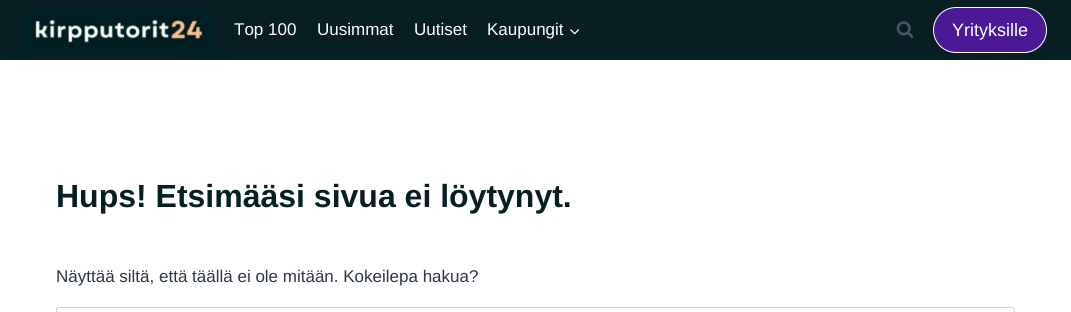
import math
import cairocffi as cairo

surface = cairo.ImageSurface(cairo.FORMAT_RGB24, 1071, 312)
ctx = cairo.Context(surface)
options = cairo.FontOptions()
options.set_hint_metrics(cairo.HINT_METRICS_OFF)
options.set_hint_style(cairo.HINT_STYLE_NONE)
ctx.set_font_options(options)
ctx.set_miter_limit(4)


def rgb(r, g, b):
    ctx.set_source_rgb(r / 255, g / 255, b / 255)


def face(family, size, italic, bold):
    ctx.select_font_face(family, cairo.FONT_SLANT_ITALIC if italic else cairo.FONT_SLANT_NORMAL, cairo.FONT_WEIGHT_BOLD if bold else cairo.FONT_WEIGHT_NORMAL)
    ctx.set_font_size(size)


def label(x, y, s):
    ctx.move_to(x, y)
    ctx.show_text(s)


def rect(x, y, w, h):
    ctx.rectangle(x, y, w, h)
    ctx.fill()


def rrect(x, y, w, h, r):
    ctx.new_sub_path()
    for i, (u, v) in enumerate([(x + w - r, y + h - r), (x + r, y + h - r), (x + r, y + r), (x + w - r, y + r)]):
        ctx.arc(u, v, r, i * math.pi / 2, (i + 1) * math.pi / 2)
    ctx.close_path()


def image(path, x, y, w, h):
    ctx.save()
    ctx.set_source_surface(cairo.ImageSurface.create_from_png(path), x, y)
    ctx.rectangle(x, y, w, h)
    ctx.fill()
    ctx.restore()


rgb(255, 255, 255)
ctx.paint()
rgb(7, 30, 34)
rect(0, 0, 1071, 60)
image('image0.png', 24, 9, 190, 42)
face('Liberation Sans', 17, 0, 0)
rgb(255, 255, 255)
label(234, 35, 'Top 100')
label(317, 35, 'Uusimmat')
label(414, 35, 'Uutiset')
label(487, 35, 'Kaupungit')
image('image1.png', 570, 29, 10, 6)
image('image2.png', 896, 21, 18, 17)
rgb(76, 25, 150)
rrect(933.5, 7.5, 113, 45, 22.5)
ctx.fill_preserve()
rgb(255, 255, 255)
ctx.set_line_width(1)
ctx.stroke()
face('Liberation Sans', 18, 0, 0)
label(952, 36, 'Yrityksille')
face('Liberation Sans', 32, 0, 1)
rgb(7, 30, 34)
label(56, 207, 'Hups! Etsimääsi sivua ei löytynyt.')
face('Liberation Sans', 17, 0, 0)
rgb(45, 55, 72)
label(56, 282, 'Näyttää siltä, että täällä ei ole mitään. Kokeilepa hakua?')
rrect(56.5, 307.5, 958, 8, 2.5)
rgb(203, 213, 224)
ctx.stroke()
surface.write_to_png('render.png')
